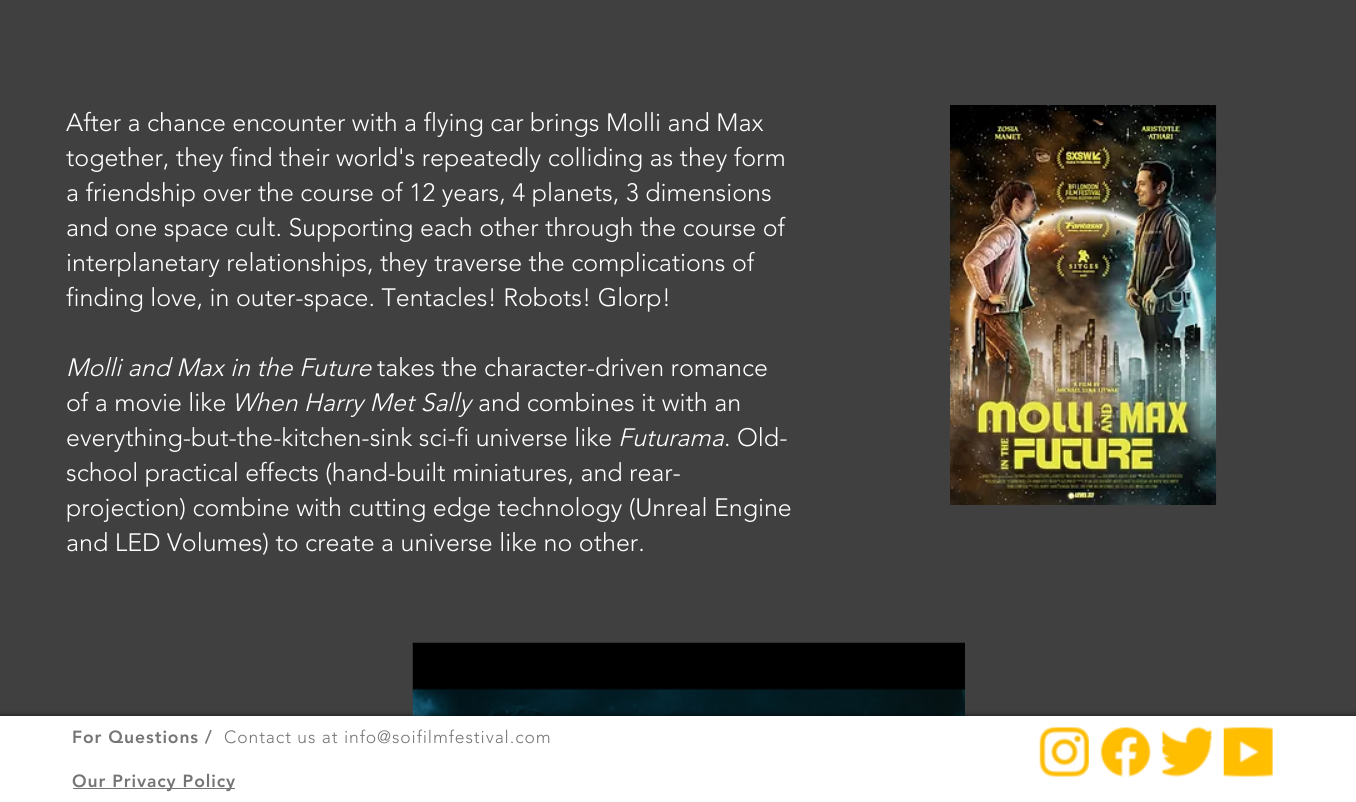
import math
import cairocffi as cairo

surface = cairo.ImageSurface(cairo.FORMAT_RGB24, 1356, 802)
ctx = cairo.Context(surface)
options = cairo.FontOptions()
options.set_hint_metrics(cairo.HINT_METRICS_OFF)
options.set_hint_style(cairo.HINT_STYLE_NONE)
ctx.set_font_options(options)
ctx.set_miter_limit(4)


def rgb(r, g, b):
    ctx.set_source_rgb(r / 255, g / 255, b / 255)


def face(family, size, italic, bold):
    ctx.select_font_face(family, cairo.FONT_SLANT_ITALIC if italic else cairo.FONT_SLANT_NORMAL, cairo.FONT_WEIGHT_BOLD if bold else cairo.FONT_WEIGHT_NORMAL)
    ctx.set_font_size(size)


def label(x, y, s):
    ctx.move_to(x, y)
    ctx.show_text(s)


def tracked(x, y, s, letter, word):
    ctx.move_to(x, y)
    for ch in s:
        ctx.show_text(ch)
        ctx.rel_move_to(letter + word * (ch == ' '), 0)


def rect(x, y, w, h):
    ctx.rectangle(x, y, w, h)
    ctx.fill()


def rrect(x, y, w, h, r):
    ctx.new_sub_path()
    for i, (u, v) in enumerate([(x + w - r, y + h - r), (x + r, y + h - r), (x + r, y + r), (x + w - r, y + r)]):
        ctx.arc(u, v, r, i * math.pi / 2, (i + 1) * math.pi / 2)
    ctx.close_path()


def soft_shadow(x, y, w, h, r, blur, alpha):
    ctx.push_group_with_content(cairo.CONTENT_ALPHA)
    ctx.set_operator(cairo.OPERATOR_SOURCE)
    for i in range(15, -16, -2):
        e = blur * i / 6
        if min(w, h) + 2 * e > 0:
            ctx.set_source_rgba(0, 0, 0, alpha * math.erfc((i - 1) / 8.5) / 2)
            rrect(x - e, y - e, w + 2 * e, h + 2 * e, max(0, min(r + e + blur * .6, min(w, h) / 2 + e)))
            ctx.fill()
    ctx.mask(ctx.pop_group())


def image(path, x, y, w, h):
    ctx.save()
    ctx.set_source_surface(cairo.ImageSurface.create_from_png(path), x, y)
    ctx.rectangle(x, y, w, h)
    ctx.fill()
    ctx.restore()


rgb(64, 64, 64)
ctx.paint()
face('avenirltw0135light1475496 Light', 25, 0, 0)
rgb(255, 255, 255)
label(66, 131, 'After a chance encounter with a flying car brings Molli and Max')
label(66, 166, 'together, they find their world\'s repeatedly colliding as they form')
label(66, 201, 'a friendship over the course of 12 years, 4 planets, 3 dimensions')
label(66, 236, 'and one space cult. Supporting each other through the course of')
label(66, 271, 'interplanetary relationships, they traverse the complications of')
label(66, 306, 'finding love, in outer-space. Tentacles! Robots! Glorp!')
face('avenirltw0135light1475496 Light', 25, 1, 0)
label(66, 376, 'Molli and Max in the Future')
face('avenirltw0135light1475496 Light', 25, 0, 0)
label(377, 376, 'takes the character-driven romance')
label(66, 411, 'of a movie like')
face('avenirltw0135light1475496 Light', 25, 1, 0)
label(232, 411, 'When Harry Met Sally')
face('avenirltw0135light1475496 Light', 25, 0, 0)
label(478, 411, 'and combines it with an')
label(66, 446, 'everything-but-the-kitchen-sink sci-fi universe like')
face('avenirltw0135light1475496 Light', 25, 1, 0)
label(618, 446, 'Futurama')
face('avenirltw0135light1475496 Light', 25, 0, 0)
label(724, 446, '. Old-')
label(66, 481, 'school practical effects (hand-built miniatures, and rear-')
label(66, 516, 'projection) combine with cutting edge technology (Unreal Engine')
label(66, 551, 'and LED Volumes) to create a universe like no other.')
image('image0.png', 950, 105, 267, 400)
image('image1.png', 412, 642, 553, 74)
rgb(0, 0, 0)
soft_shadow(0, 716, 1356, 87, 0, 3, 0.7)
rgb(255, 255, 255)
rect(0, 716, 1356, 86)
face('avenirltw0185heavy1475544 Black', 17.5, 0, 0)
rgb(117, 117, 117)
tracked(72, 743, 'For Questions /', 0.9, 0)
face('avenirltw0135light1475496 Light', 17.5, 0, 0)
tracked(224, 743, 'Contact us at info@soifilmfestival.com', 0.9, 0)
image('image2.png', 1039, 727, 50, 50)
image('image3.png', 1100, 727, 51, 50)
image('image4.png', 1161, 727, 51, 50)
image('image5.png', 1223, 727, 50, 50)
rect(73, 788, 162, 1)
face('avenirltw0185heavy1475544 Black', 17.5, 0, 0)
tracked(72, 787, 'Our Privacy Policy', 0.9, 0)
surface.write_to_png('render.png')
